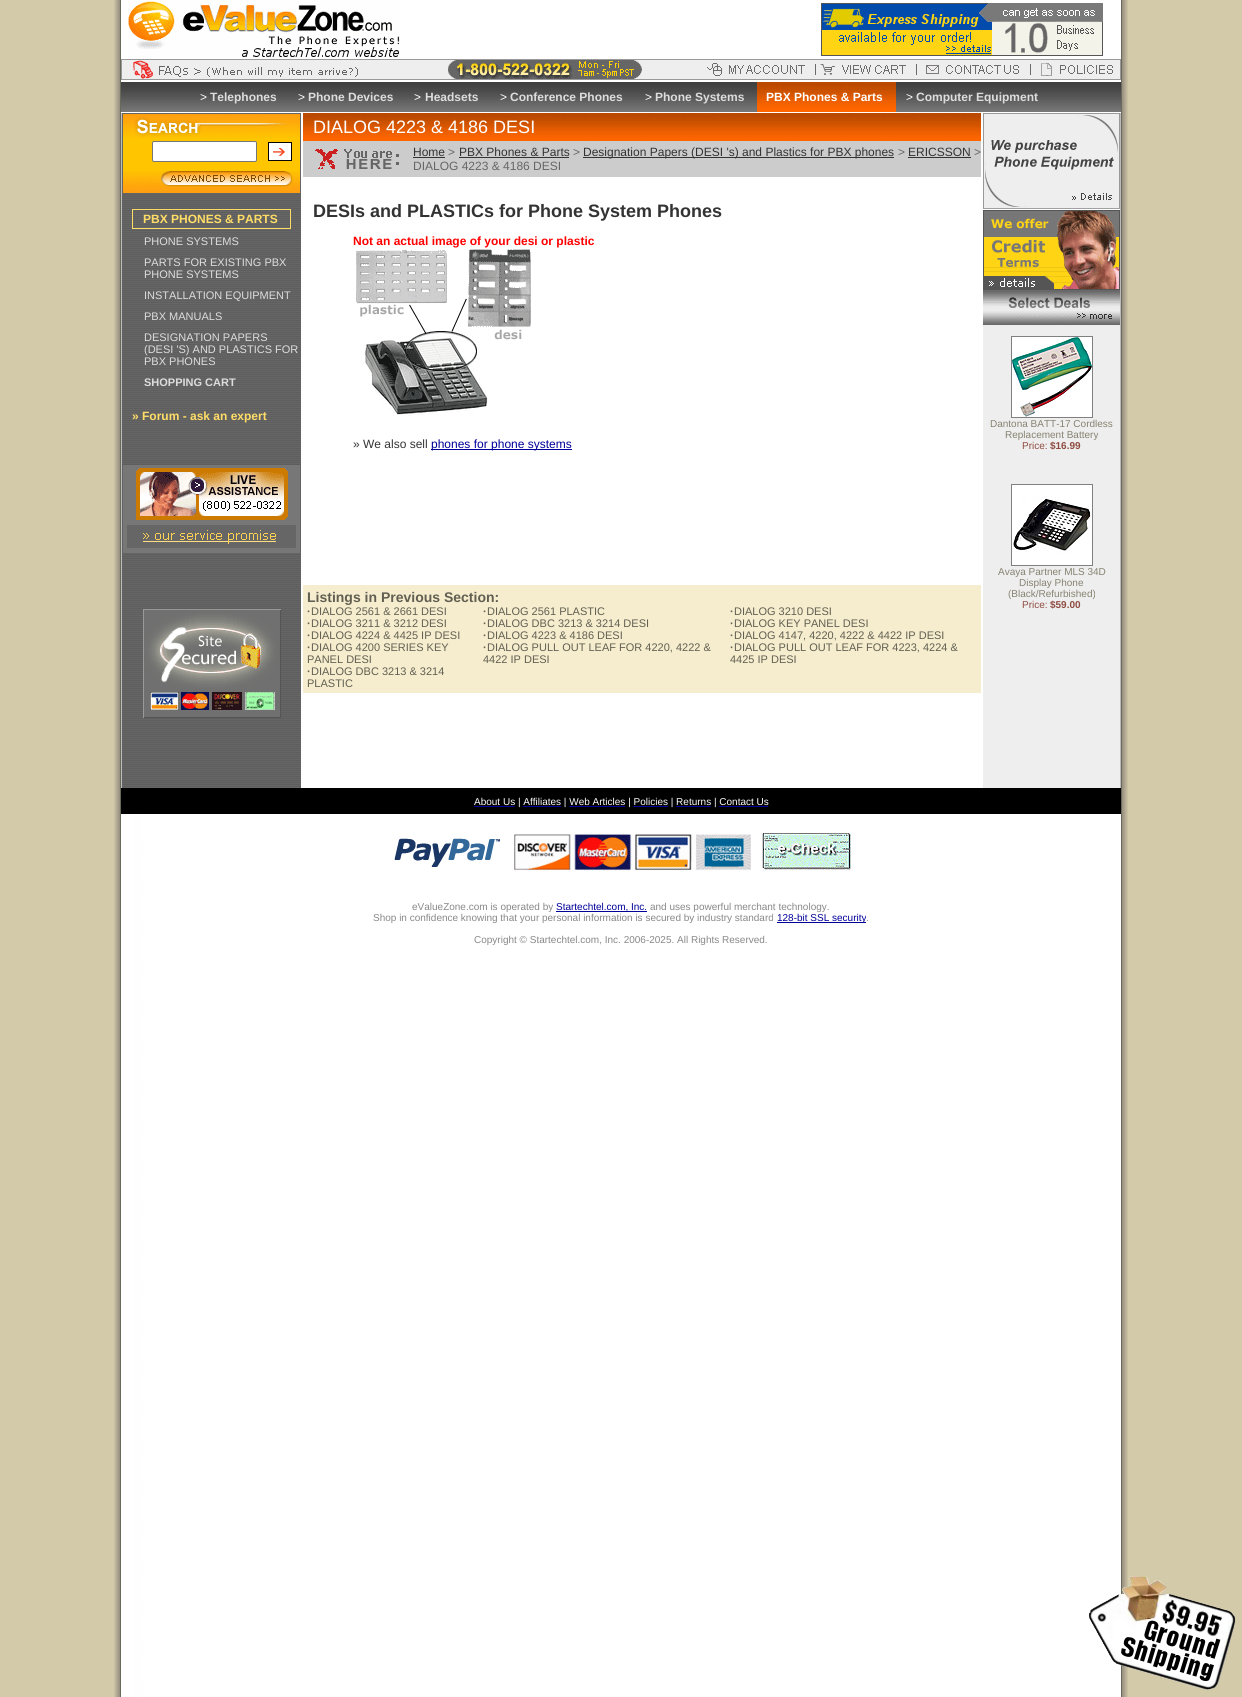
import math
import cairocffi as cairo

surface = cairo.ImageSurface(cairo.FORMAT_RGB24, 1242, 1697)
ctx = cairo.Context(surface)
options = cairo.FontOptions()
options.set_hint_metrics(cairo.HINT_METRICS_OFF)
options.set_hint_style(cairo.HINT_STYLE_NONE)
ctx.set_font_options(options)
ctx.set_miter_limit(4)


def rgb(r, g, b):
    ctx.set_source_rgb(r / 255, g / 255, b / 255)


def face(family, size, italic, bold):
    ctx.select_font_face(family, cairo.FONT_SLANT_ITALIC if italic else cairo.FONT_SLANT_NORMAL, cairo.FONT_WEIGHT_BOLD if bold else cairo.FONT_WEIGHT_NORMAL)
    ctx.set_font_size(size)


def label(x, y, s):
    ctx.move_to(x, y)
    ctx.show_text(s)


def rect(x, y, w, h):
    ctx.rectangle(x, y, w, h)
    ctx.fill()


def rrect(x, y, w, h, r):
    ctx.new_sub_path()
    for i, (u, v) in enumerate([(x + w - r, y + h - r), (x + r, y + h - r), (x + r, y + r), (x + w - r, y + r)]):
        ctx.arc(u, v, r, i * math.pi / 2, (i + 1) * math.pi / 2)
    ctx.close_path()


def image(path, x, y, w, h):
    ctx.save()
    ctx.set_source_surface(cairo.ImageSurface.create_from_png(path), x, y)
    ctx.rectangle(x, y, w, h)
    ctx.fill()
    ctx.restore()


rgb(211, 202, 170)
ctx.paint()
image('image0.png', 114, 0, 1014, 1697)
image('image1.png', 128, 1, 272, 56)
image('image2.png', 821, 3, 282, 53)
rgb(238, 238, 238)
ctx.rectangle(121.5, 59.5, 999, 20)
ctx.fill_preserve()
rgb(153, 153, 153)
ctx.set_line_width(1)
ctx.stroke()
image('image3.png', 133, 60, 225, 19)
image('image4.png', 448, 60, 194, 19)
image('image5.png', 707, 63, 109, 13)
image('image6.png', 820, 64, 97, 11)
image('image7.png', 926, 64, 105, 11)
image('image8.png', 1040, 63, 73, 13)
image('image9.png', 121, 82, 1000, 30)
face('Liberation Sans', 12, 0, 0)
rgb(255, 255, 255)
label(200, 101, '>')
face('Liberation Sans', 12, 0, 1)
rgb(221, 221, 221)
label(210, 101, 'Telephones')
face('Liberation Sans', 12, 0, 0)
rgb(255, 255, 255)
label(298, 101, '>')
face('Liberation Sans', 12, 0, 1)
rgb(221, 221, 221)
label(308, 101, 'Phone Devices')
face('Liberation Sans', 12, 0, 0)
rgb(255, 255, 255)
label(414, 101, '>')
face('Liberation Sans', 12, 0, 1)
rgb(221, 221, 221)
label(425, 101, 'Headsets')
face('Liberation Sans', 12, 0, 0)
rgb(255, 255, 255)
label(500, 101, '>')
face('Liberation Sans', 12, 0, 1)
rgb(221, 221, 221)
label(510, 101, 'Conference Phones')
face('Liberation Sans', 12, 0, 0)
rgb(255, 255, 255)
label(645, 101, '>')
face('Liberation Sans', 12, 0, 1)
rgb(221, 221, 221)
label(655, 101, 'Phone Systems')
rgb(255, 102, 0)
rect(757, 108, 139, 4)
image('image10.png', 757, 82, 139, 26)
rgb(255, 255, 255)
label(766, 101, 'PBX Phones & Parts')
face('Liberation Sans', 12, 0, 0)
label(906, 101, '>')
face('Liberation Sans', 12, 0, 1)
rgb(221, 221, 221)
label(916, 101, 'Computer Equipment')
rgb(188, 188, 188)
rect(121, 113, 1, 675)
rgb(102, 102, 102)
rect(122, 787, 179, 1)
image('image11.png', 122, 194, 179, 593)
rgb(255, 198, 0)
rect(123, 138, 177, 33)
ctx.rectangle(122.5, 113.5, 178, 80)
rgb(102, 102, 102)
ctx.stroke()
image('image12.png', 123, 114, 177, 24)
rgb(255, 255, 255)
rrect(152.5, 141.5, 104, 20, 1.5)
ctx.fill_preserve()
rgb(118, 118, 118)
ctx.stroke()
image('image13.png', 268, 142, 24, 19)
image('image14.png', 123, 171, 177, 22)
ctx.rectangle(132.5, 209.5, 158, 19)
rgb(255, 221, 102)
ctx.stroke()
label(143, 223, 'PBX PHONES & PARTS')
face('Liberation Sans', 11, 0, 0)
rgb(221, 221, 221)
label(144, 245, 'PHONE SYSTEMS')
label(144, 266, 'PARTS FOR EXISTING PBX')
label(144, 278, 'PHONE SYSTEMS')
label(144, 299, 'INSTALLATION EQUIPMENT')
label(144, 320, 'PBX MANUALS')
label(144, 341, 'DESIGNATION PAPERS')
label(144, 353, '(DESI \'S) AND PLASTICS FOR')
label(144, 365, 'PBX PHONES')
face('Liberation Sans', 11, 0, 1)
label(144, 386, 'SHOPPING CART')
face('Liberation Sans', 12, 0, 1)
rgb(255, 221, 102)
label(132, 420, '» Forum - ask an expert')
rgb(119, 119, 119)
rect(123, 465, 177, 88)
image('image15.png', 136, 468, 152, 52)
image('image16.png', 127, 525, 169, 23)
image('image17.png', 143, 609, 138, 109)
image('image18.png', 303, 113, 678, 28)
face('Liberation Sans', 18, 0, 0)
rgb(255, 255, 255)
label(313, 133, 'DIALOG 4223 & 4186 DESI')
rgb(204, 204, 204)
rect(303, 141, 678, 36)
image('image19.png', 315, 149, 84, 20)
face('Liberation Sans', 12, 0, 0)
rgb(51, 51, 51)
label(413, 156, 'Home')
rect(413, 157, 32, 1)
rgb(102, 102, 102)
label(448, 156, '>')
rgb(51, 51, 51)
label(459, 156, 'PBX Phones & Parts')
rect(459, 157, 110, 1)
rgb(102, 102, 102)
label(573, 156, '>')
rgb(51, 51, 51)
rect(583, 157, 311, 1)
label(583, 156, 'Designation Papers (DESI \'s) and Plastics for PBX phones')
rgb(102, 102, 102)
label(898, 156, '>')
rgb(51, 51, 51)
label(908, 156, 'ERICSSON')
rect(908, 157, 63, 1)
rgb(102, 102, 102)
label(974, 156, '>')
label(413, 170, 'DIALOG 4223 & 4186 DESI')
face('Liberation Sans', 18, 0, 1)
rgb(51, 51, 51)
label(313, 217, 'DESIs and PLASTICs for Phone System Phones')
face('Liberation Sans', 12, 0, 1)
rgb(255, 0, 0)
label(353, 245, 'Not an actual image of your desi or plastic')
image('image20.png', 354, 248, 177, 168)
face('Liberation Sans', 12, 0, 0)
rgb(51, 51, 51)
label(353, 448, '» We also sell')
rgb(0, 0, 153)
rect(431, 449, 141, 1)
label(431, 448, 'phones for phone systems')
rgb(245, 237, 206)
rect(303, 585, 678, 108)
face('Liberation Sans', 14, 0, 1)
rgb(98, 95, 82)
label(307, 602, 'Listings in Previous Section:')
face('Liberation Sans', 11, 0, 1)
label(307, 615, '·')
face('Liberation Sans', 11, 0, 0)
label(311, 615, 'DIALOG 2561 & 2661 DESI')
face('Liberation Sans', 11, 0, 1)
label(483, 615, '·')
face('Liberation Sans', 11, 0, 0)
label(487, 615, 'DIALOG 2561 PLASTIC')
face('Liberation Sans', 11, 0, 1)
label(730, 615, '·')
face('Liberation Sans', 11, 0, 0)
label(734, 615, 'DIALOG 3210 DESI')
face('Liberation Sans', 11, 0, 1)
label(307, 627, '·')
face('Liberation Sans', 11, 0, 0)
label(311, 627, 'DIALOG 3211 & 3212 DESI')
face('Liberation Sans', 11, 0, 1)
label(483, 627, '·')
face('Liberation Sans', 11, 0, 0)
label(487, 627, 'DIALOG DBC 3213 & 3214 DESI')
face('Liberation Sans', 11, 0, 1)
label(730, 627, '·')
face('Liberation Sans', 11, 0, 0)
label(734, 627, 'DIALOG KEY PANEL DESI')
face('Liberation Sans', 11, 0, 1)
label(307, 639, '·')
face('Liberation Sans', 11, 0, 0)
label(311, 639, 'DIALOG 4224 & 4425 IP DESI')
face('Liberation Sans', 11, 0, 1)
label(483, 639, '·')
face('Liberation Sans', 11, 0, 0)
label(487, 639, 'DIALOG 4223 & 4186 DESI')
face('Liberation Sans', 11, 0, 1)
label(730, 639, '·')
face('Liberation Sans', 11, 0, 0)
label(734, 639, 'DIALOG 4147, 4220, 4222 & 4422 IP DESI')
face('Liberation Sans', 11, 0, 1)
label(307, 651, '·')
face('Liberation Sans', 11, 0, 0)
label(311, 651, 'DIALOG 4200 SERIES KEY')
label(307, 663, 'PANEL DESI')
face('Liberation Sans', 11, 0, 1)
label(483, 651, '·')
face('Liberation Sans', 11, 0, 0)
label(487, 651, 'DIALOG PULL OUT LEAF FOR 4220, 4222 &')
label(483, 663, '4422 IP DESI')
face('Liberation Sans', 11, 0, 1)
label(730, 651, '·')
face('Liberation Sans', 11, 0, 0)
label(734, 651, 'DIALOG PULL OUT LEAF FOR 4223, 4224 &')
label(730, 663, '4425 IP DESI')
face('Liberation Sans', 11, 0, 1)
label(307, 675, '·')
face('Liberation Sans', 11, 0, 0)
label(311, 675, 'DIALOG DBC 3213 & 3214')
label(307, 687, 'PLASTIC')
rgb(188, 188, 188)
rect(1120, 113, 1, 675)
rgb(238, 238, 238)
rect(983, 325, 137, 463)
image('image21.png', 983, 113, 137, 97)
image('image22.png', 983, 210, 137, 80)
image('image23.png', 983, 290, 137, 35)
ctx.rectangle(1011.5, 336.5, 81, 81)
rgb(128, 128, 128)
ctx.stroke()
image('image24.png', 1012, 337, 80, 80)
face('Liberation Sans', 10, 0, 0)
rgb(134, 130, 112)
label(990, 427, 'Dantona BATT-17 Cordless')
label(1005, 438, 'Replacement Battery')
rgb(142, 75, 65)
label(1022, 449, 'Price:')
face('Liberation Sans', 10, 0, 1)
label(1050, 449, '$16.99')
ctx.rectangle(1011.5, 484.5, 81, 81)
rgb(128, 128, 128)
ctx.stroke()
image('image25.png', 1012, 485, 80, 80)
face('Liberation Sans', 10, 0, 0)
rgb(134, 130, 112)
label(998, 575, 'Avaya Partner MLS 34D')
label(1019, 586, 'Display Phone')
label(1008, 597, '(Black/Refurbished)')
rgb(142, 75, 65)
label(1022, 608, 'Price:')
face('Liberation Sans', 10, 0, 1)
label(1050, 608, '$59.00')
rgb(0, 0, 0)
rect(121, 788, 1000, 26)
rgb(0, 0, 153)
rect(474, 806, 41, 1)
face('Liberation Sans', 10, 0, 0)
rgb(255, 255, 255)
label(474, 805, 'About Us | Affiliates | Web Articles | Policies | Returns | Contact Us')
rgb(0, 0, 153)
rect(523, 806, 38, 1)
rect(569, 806, 56, 1)
rect(633, 806, 35, 1)
rect(676, 806, 35, 1)
rect(719, 806, 49, 1)
image('image26.png', 394, 838, 106, 29)
image('image27.png', 514, 834, 237, 37)
image('image28.png', 762, 833, 89, 38)
rgb(136, 136, 136)
label(412, 910, 'eValueZone.com is operated by')
rgb(0, 0, 153)
rect(556, 911, 91, 1)
label(556, 910, 'Startechtel.com, Inc.')
rgb(136, 136, 136)
label(650, 910, 'and uses powerful merchant technology.')
label(373, 921, 'Shop in confidence knowing that your personal information is secured by industry standard')
rgb(0, 0, 153)
rect(777, 922, 89, 1)
label(777, 921, '128-bit SSL security')
rgb(136, 136, 136)
label(866, 921, '.')
label(474, 943, 'Copyright © Startechtel.com, Inc. 2006-2025. All Rights Reserved.')
image('image29.png', 1088, 1576, 148, 114)
surface.write_to_png('render.png')
